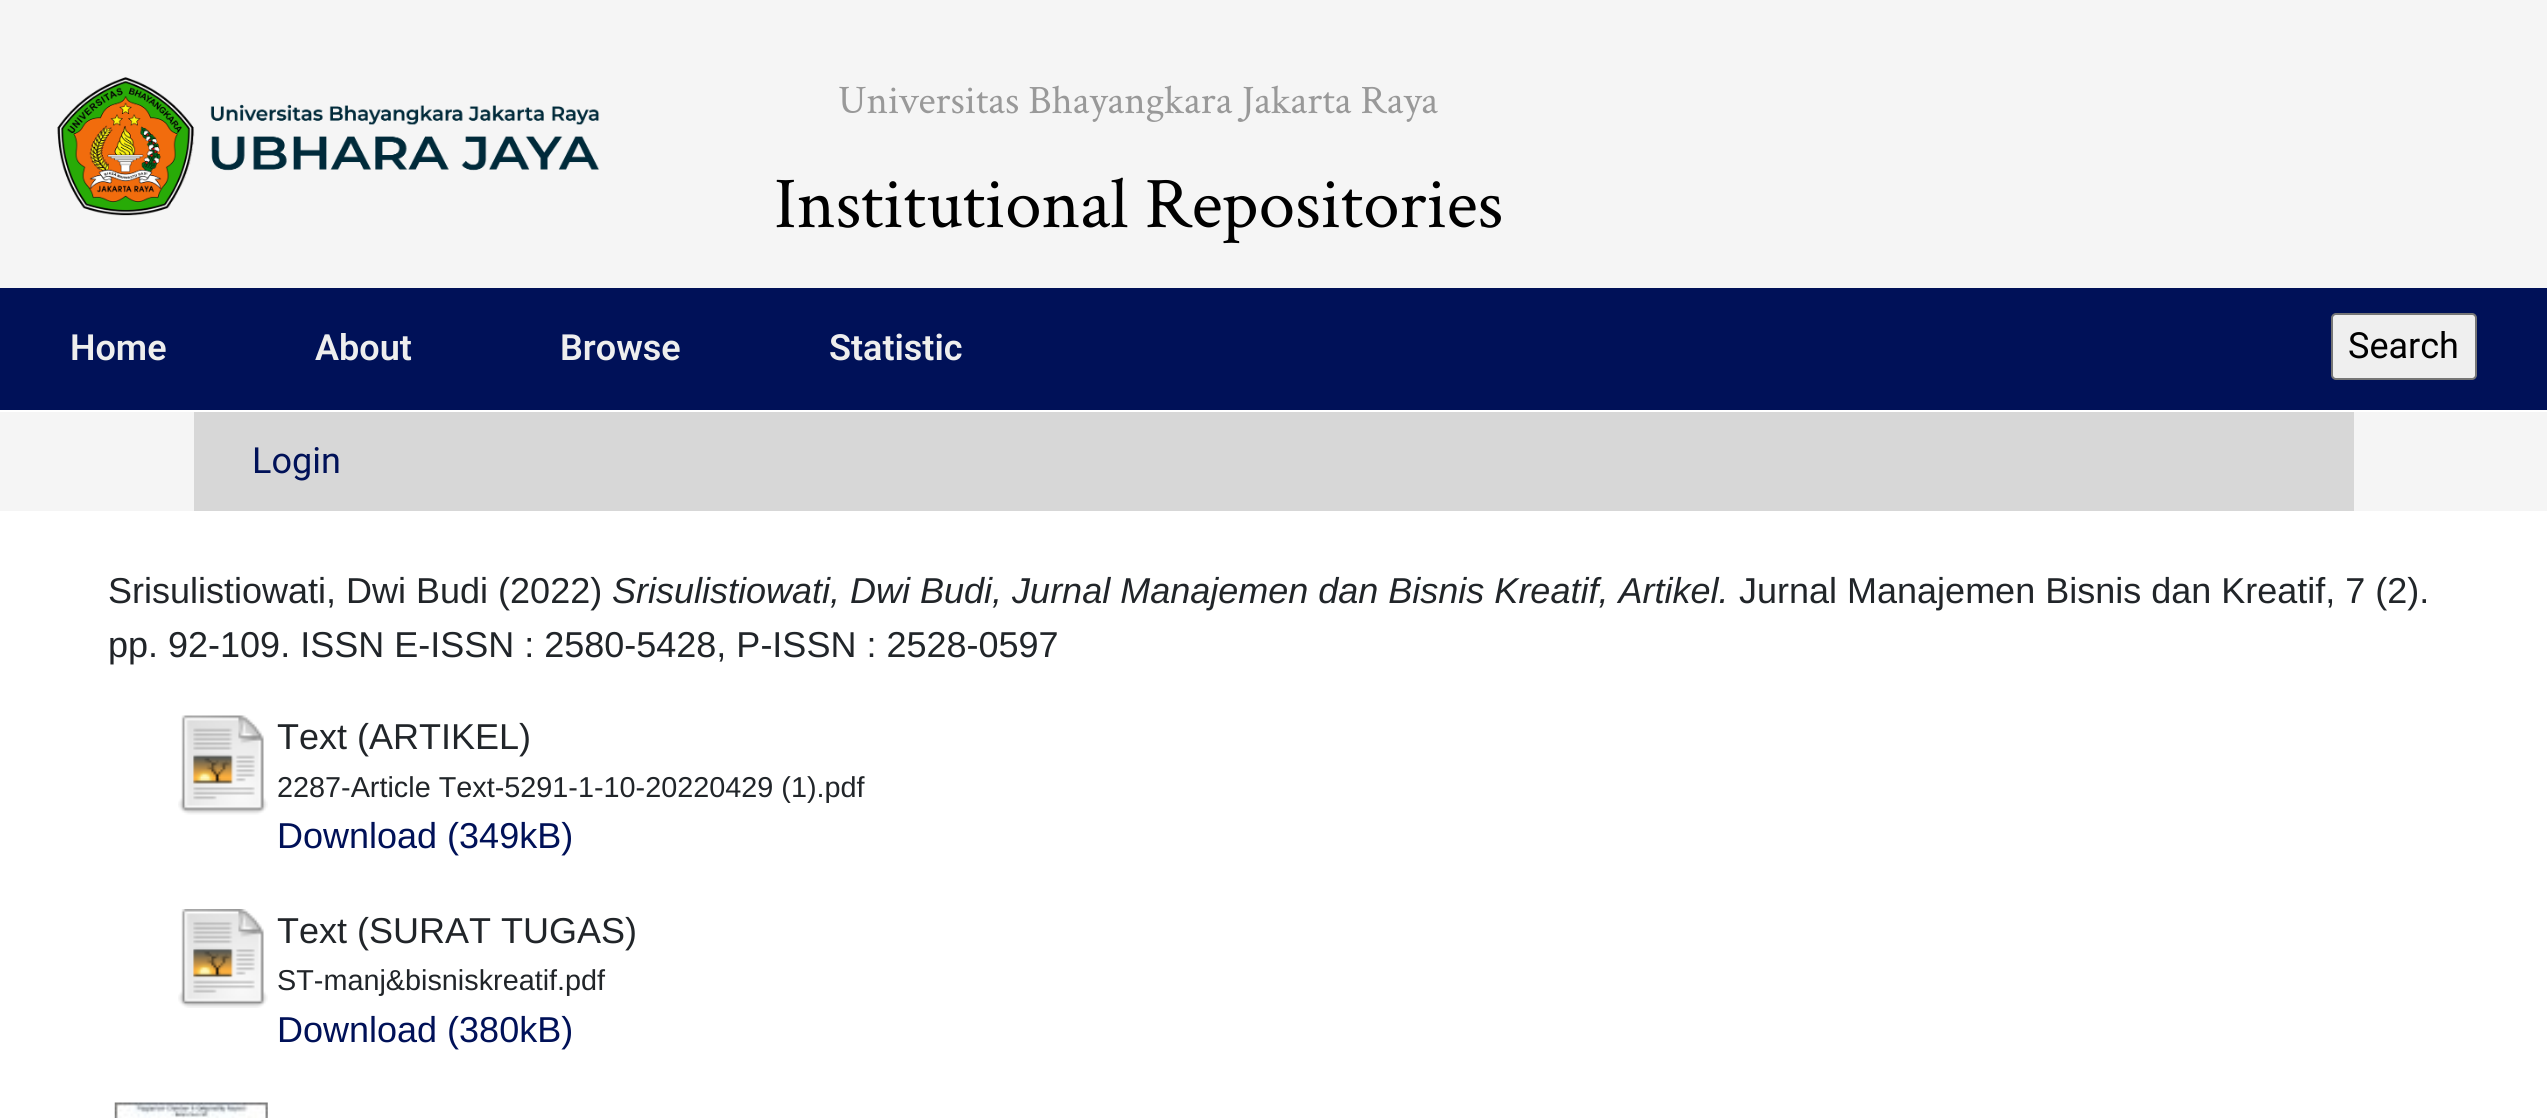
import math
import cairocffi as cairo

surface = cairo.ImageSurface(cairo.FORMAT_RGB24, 2547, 1118)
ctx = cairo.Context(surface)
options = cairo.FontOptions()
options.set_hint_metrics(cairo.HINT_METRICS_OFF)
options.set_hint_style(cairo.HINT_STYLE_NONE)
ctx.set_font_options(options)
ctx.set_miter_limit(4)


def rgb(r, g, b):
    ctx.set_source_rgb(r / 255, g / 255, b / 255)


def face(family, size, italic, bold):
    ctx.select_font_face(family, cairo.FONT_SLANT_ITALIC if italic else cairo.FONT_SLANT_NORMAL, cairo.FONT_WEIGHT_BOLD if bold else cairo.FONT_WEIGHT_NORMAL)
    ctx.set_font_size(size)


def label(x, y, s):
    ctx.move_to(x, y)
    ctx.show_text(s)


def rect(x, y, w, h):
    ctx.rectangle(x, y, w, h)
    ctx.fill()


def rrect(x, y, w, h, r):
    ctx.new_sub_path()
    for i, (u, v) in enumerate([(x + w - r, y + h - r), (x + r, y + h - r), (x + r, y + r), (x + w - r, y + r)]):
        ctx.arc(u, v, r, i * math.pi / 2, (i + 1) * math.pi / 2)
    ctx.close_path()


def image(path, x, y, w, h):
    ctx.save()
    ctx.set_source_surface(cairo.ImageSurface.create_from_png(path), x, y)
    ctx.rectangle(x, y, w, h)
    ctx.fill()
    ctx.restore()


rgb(245, 245, 245)
ctx.paint()
image('image0.png', 57, 77, 543, 139)
face('Crimson Text', 40.5, 0, 0)
rgb(153, 153, 153)
label(838, 113, 'Universitas Bhayangkara Jakarta Raya')
face('Crimson Text', 73, 0, 0)
rgb(0, 0, 0)
label(774, 227, 'Institutional Repositories')
rgb(0, 17, 88)
rect(0, 288, 2547, 122)
rgb(255, 255, 255)
rect(0, 410, 2547, 2)
face('Roboto SemiBold', 36, 0, 0)
rgb(238, 238, 238)
label(70, 360, 'Home')
label(315, 360, 'About')
label(560, 360, 'Browse')
label(829, 360, 'Statistic')
rgb(239, 239, 239)
rrect(2332, 314, 144, 65, 4)
ctx.fill_preserve()
rgb(118, 118, 118)
ctx.stroke()
face('Roboto', 36, 0, 0)
rgb(0, 0, 0)
label(2348, 358, 'Search')
rgb(215, 215, 215)
rect(194, 412, 2160, 99)
rgb(0, 17, 88)
label(252, 473, 'Login')
rgb(255, 255, 255)
rect(0, 511, 2547, 607)
face('Liberation Sans', 36, 0, 0)
rgb(33, 37, 41)
label(108, 603, 'Srisulistiowati, Dwi Budi (2022)')
face('Liberation Sans', 36, 1, 0)
label(612, 603, 'Srisulistiowati, Dwi Budi, Jurnal Manajemen dan Bisnis Kreatif, Artikel.')
face('Liberation Sans', 36, 0, 0)
label(1739, 603, 'Jurnal Manajemen Bisnis dan Kreatif, 7 (2).')
label(108, 657, 'pp. 92-109. ISSN E-ISSN : 2580-5428, P-ISSN : 2528-0597')
image('image1.png', 178, 715, 90, 100)
label(277, 749, 'Text (ARTIKEL)')
face('Liberation Sans', 28.8, 0, 0)
label(277, 797, '2287-Article Text-5291-1-10-20220429 (1).pdf')
face('Liberation Sans', 36, 0, 0)
rgb(0, 17, 88)
label(277, 848, 'Download (349kB)')
image('image2.png', 178, 909, 90, 99)
rgb(33, 37, 41)
label(277, 943, 'Text (SURAT TUGAS)')
face('Liberation Sans', 28.8, 0, 0)
label(277, 990, 'ST-manj&bisniskreatif.pdf')
face('Liberation Sans', 36, 0, 0)
rgb(0, 17, 88)
label(277, 1042, 'Download (380kB)')
image('image3.png', 114, 1102, 154, 16)
surface.write_to_png('render.png')
